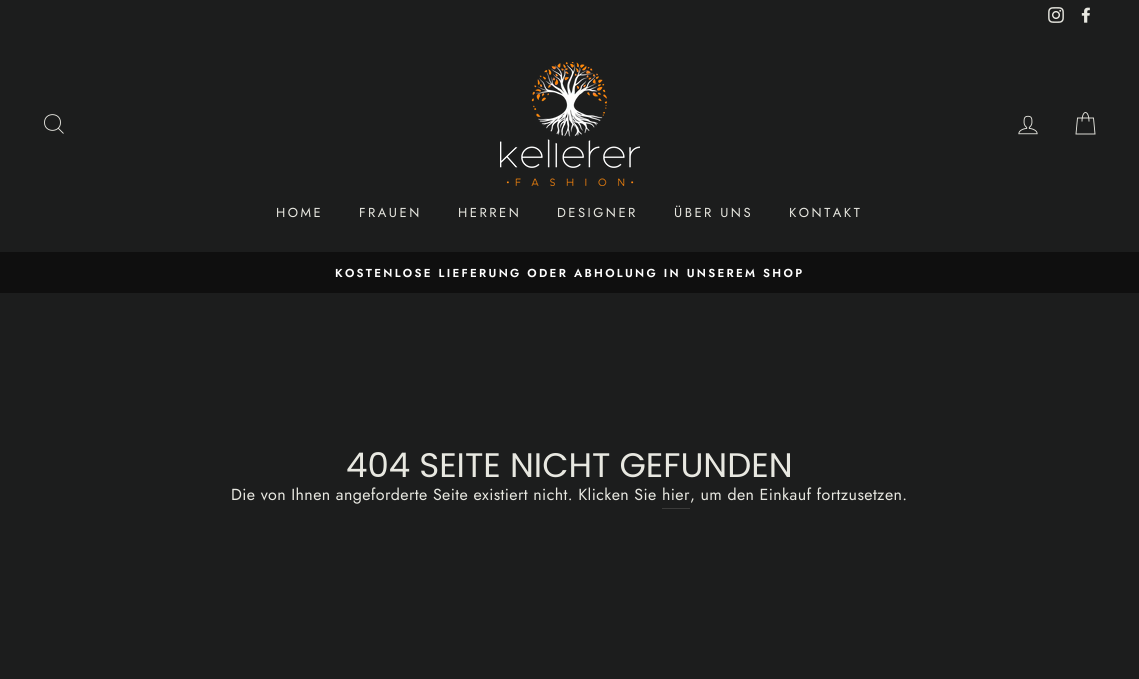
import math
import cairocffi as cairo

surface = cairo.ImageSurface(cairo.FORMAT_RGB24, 1139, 679)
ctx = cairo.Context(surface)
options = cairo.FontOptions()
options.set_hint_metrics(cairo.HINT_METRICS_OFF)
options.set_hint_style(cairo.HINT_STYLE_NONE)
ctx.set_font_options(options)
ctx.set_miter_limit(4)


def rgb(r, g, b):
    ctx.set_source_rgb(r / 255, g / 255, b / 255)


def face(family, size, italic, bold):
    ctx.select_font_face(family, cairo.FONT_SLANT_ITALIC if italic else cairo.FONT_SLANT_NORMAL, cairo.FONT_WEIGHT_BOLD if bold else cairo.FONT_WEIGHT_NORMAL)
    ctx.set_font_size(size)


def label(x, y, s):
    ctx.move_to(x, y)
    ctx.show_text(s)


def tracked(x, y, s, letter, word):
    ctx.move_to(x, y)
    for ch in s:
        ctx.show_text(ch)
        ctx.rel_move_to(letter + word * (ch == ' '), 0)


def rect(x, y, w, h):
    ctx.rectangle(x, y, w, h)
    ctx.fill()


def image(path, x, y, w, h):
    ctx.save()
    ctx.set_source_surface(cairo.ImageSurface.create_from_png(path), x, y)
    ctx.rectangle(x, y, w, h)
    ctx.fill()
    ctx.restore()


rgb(28, 29, 29)
ctx.paint()
image('image0.png', 1048, 7, 16, 16)
image('image1.png', 1081, 7, 9, 16)
ctx.new_path()
ctx.move_to(60.5, 122.5)
ctx.curve_to(60.5, 133, 44.5, 133, 44.5, 122.5)
ctx.curve_to(44.5, 112, 60.5, 112, 60.5, 122.5)
ctx.close_path()
ctx.move_to(63.5, 133.5)
ctx.line_to(58.5, 128.5)
rgb(232, 232, 225)
ctx.set_line_width(0.9)
ctx.stroke()
image('image2.png', 500, 62, 140, 124)
image('image3.png', 1018, 115, 20, 20)
ctx.new_path()
ctx.move_to(1082, 121.5)
ctx.curve_to(1082, 109.5, 1089, 109.5, 1089, 121.5)
ctx.move_to(1077.5, 118)
ctx.line_to(1093.5, 118)
ctx.line_to(1095, 134)
ctx.line_to(1076, 134)
ctx.close_path()
ctx.stroke()
face('Jost', 13, 0, 0)
tracked(276, 217, 'HOME', 2.5, 0)
tracked(359, 217, 'FRAUEN', 2.5, 0)
tracked(458, 217, 'HERREN', 2.5, 0)
tracked(557, 217, 'DESIGNER', 2.5, 0)
tracked(674, 217, 'ÜBER UNS', 2.5, 0)
tracked(789, 217, 'KONTAKT', 2.5, 0)
rgb(15, 15, 15)
rect(0, 252, 1139, 41)
face('Jost SemiBold', 11.55, 0, 0)
rgb(255, 255, 255)
tracked(335, 277, 'KOSTENLOSE LIEFERUNG ODER ABHOLUNG IN UNSEREM SHOP', 2.3, 0)
face('Poppins', 34, 0, 0)
rgb(232, 232, 225)
label(346, 477, '404 SEITE NICHT GEFUNDEN')
face('Jost', 16, 0, 0)
tracked(231, 500, 'Die von Ihnen angeforderte Seite existiert nicht. Klicken Sie hier', 0.4, 0)
tracked(690, 500, ', um den Einkauf fortzusetzen.', 0.4, 0)
rgb(59, 59, 58)
rect(662, 508, 28, 1)
surface.write_to_png('render.png')
